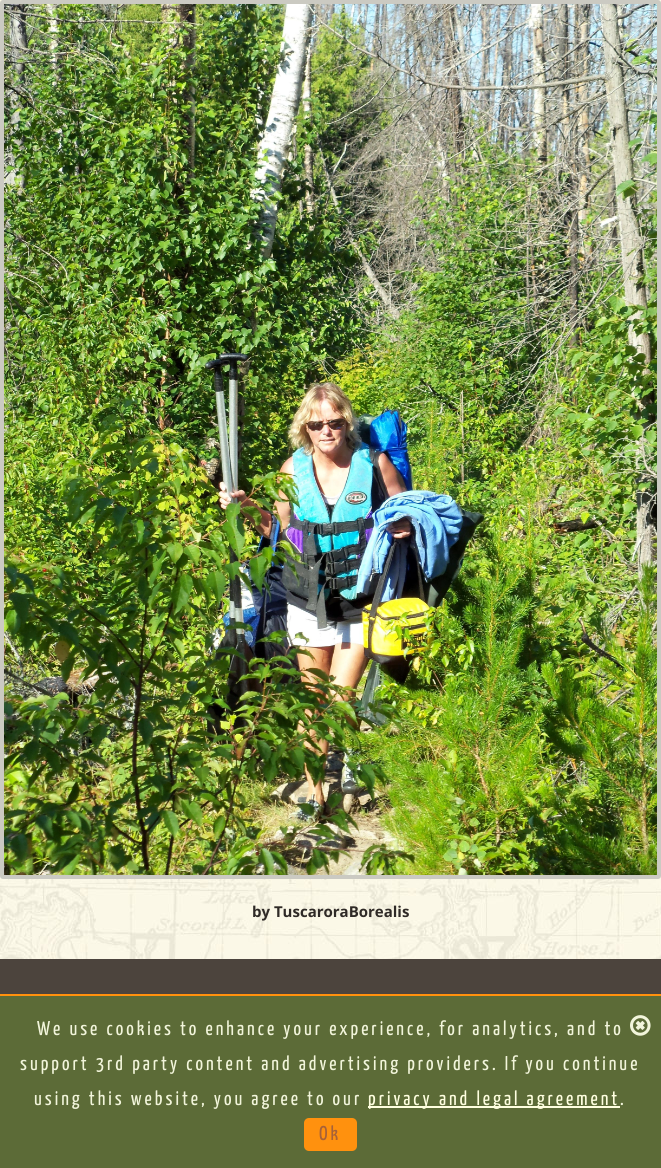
import math
import cairocffi as cairo

surface = cairo.ImageSurface(cairo.FORMAT_RGB24, 661, 1168)
ctx = cairo.Context(surface)
options = cairo.FontOptions()
options.set_hint_metrics(cairo.HINT_METRICS_OFF)
options.set_hint_style(cairo.HINT_STYLE_NONE)
ctx.set_font_options(options)
ctx.set_miter_limit(4)


def rgb(r, g, b):
    ctx.set_source_rgb(r / 255, g / 255, b / 255)


def face(family, size, italic, bold):
    ctx.select_font_face(family, cairo.FONT_SLANT_ITALIC if italic else cairo.FONT_SLANT_NORMAL, cairo.FONT_WEIGHT_BOLD if bold else cairo.FONT_WEIGHT_NORMAL)
    ctx.set_font_size(size)


def label(x, y, s):
    ctx.move_to(x, y)
    ctx.show_text(s)


def tracked(x, y, s, letter, word):
    ctx.move_to(x, y)
    for ch in s:
        ctx.show_text(ch)
        ctx.rel_move_to(letter + word * (ch == ' '), 0)


def rect(x, y, w, h):
    ctx.rectangle(x, y, w, h)
    ctx.fill()


def rrect(x, y, w, h, r):
    ctx.new_sub_path()
    for i, (u, v) in enumerate([(x + w - r, y + h - r), (x + r, y + h - r), (x + r, y + r), (x + w - r, y + r)]):
        ctx.arc(u, v, r, i * math.pi / 2, (i + 1) * math.pi / 2)
    ctx.close_path()


def image(path, x, y, w, h):
    ctx.save()
    ctx.set_source_surface(cairo.ImageSurface.create_from_png(path), x, y)
    ctx.rectangle(x, y, w, h)
    ctx.fill()
    ctx.restore()


rgb(76, 68, 61)
ctx.paint()
image('image0.png', 0, 0, 661, 959)
rrect(2, 2, 657, 875, 1)
rgb(203, 202, 194)
ctx.set_line_width(4)
ctx.stroke()
image('image1.png', 4, 4, 653, 871)
face('Open Sans', 15, 0, 1)
rgb(47, 42, 38)
label(252, 917, 'by TuscaroraBorealis')
rgb(92, 107, 55)
rect(0, 996, 661, 172)
rgb(255, 145, 14)
rect(0, 994, 661, 2)
face('Yanone Kaffeesatz', 20, 0, 0)
rgb(242, 245, 219)
tracked(37, 1035, 'We use cookies to enhance your experience, for analytics, and to', 3, 0)
tracked(20, 1070, 'support 3rd party content and advertising providers. If you continue', 3, 0)
tracked(34, 1105, 'using this website, you agree to our', 3, 0)
rgb(255, 255, 224)
rect(368, 1106, 252, 2)
tracked(368, 1105, 'privacy and legal agreement', 3, 0)
rgb(242, 245, 219)
tracked(620, 1105, '.', 3, 0)
rgb(255, 145, 14)
rrect(304, 1118, 53, 33, 5)
ctx.fill()
rgb(166, 97, 56)
tracked(319, 1140, 'Ok', 3, 0)
image('image2.png', 630, 1015, 21, 21)
surface.write_to_png('render.png')
